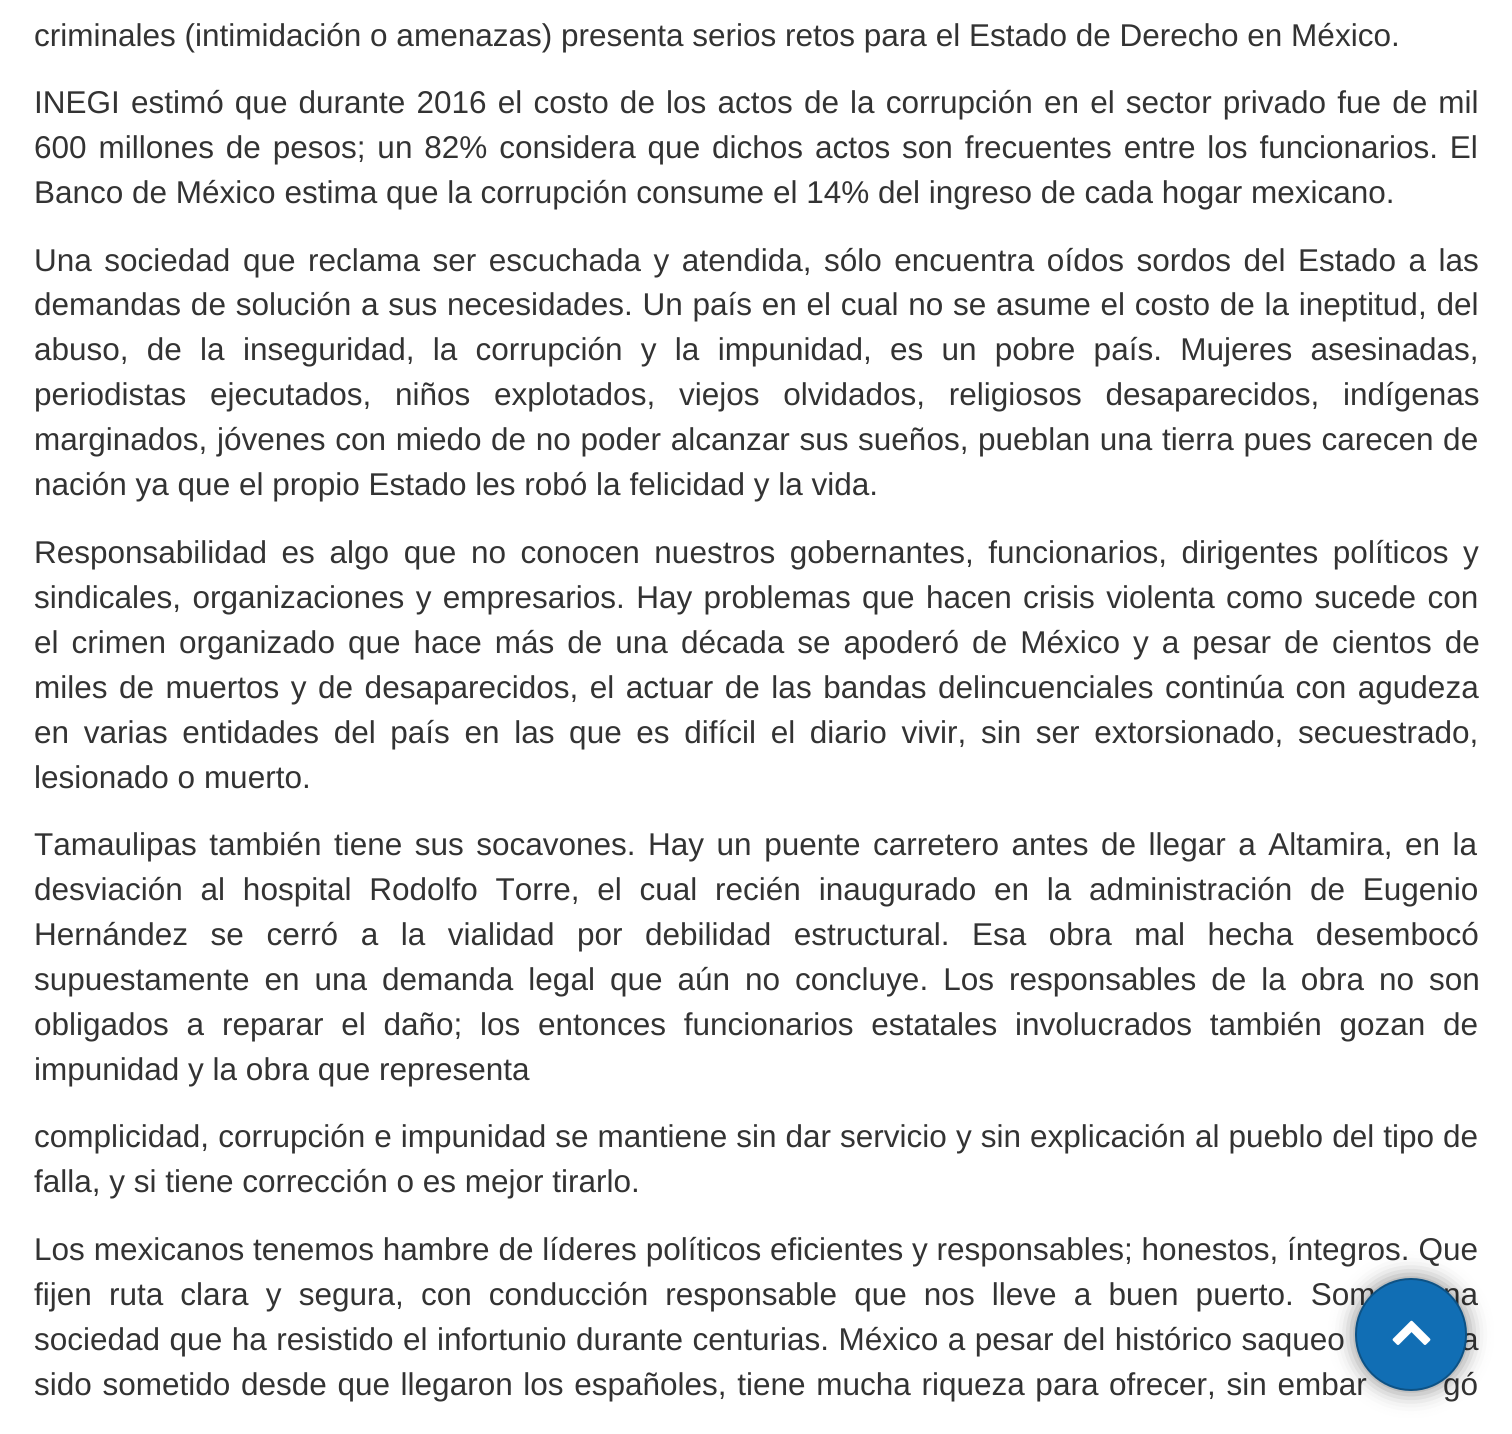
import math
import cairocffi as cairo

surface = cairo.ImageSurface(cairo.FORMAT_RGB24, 1512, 1434)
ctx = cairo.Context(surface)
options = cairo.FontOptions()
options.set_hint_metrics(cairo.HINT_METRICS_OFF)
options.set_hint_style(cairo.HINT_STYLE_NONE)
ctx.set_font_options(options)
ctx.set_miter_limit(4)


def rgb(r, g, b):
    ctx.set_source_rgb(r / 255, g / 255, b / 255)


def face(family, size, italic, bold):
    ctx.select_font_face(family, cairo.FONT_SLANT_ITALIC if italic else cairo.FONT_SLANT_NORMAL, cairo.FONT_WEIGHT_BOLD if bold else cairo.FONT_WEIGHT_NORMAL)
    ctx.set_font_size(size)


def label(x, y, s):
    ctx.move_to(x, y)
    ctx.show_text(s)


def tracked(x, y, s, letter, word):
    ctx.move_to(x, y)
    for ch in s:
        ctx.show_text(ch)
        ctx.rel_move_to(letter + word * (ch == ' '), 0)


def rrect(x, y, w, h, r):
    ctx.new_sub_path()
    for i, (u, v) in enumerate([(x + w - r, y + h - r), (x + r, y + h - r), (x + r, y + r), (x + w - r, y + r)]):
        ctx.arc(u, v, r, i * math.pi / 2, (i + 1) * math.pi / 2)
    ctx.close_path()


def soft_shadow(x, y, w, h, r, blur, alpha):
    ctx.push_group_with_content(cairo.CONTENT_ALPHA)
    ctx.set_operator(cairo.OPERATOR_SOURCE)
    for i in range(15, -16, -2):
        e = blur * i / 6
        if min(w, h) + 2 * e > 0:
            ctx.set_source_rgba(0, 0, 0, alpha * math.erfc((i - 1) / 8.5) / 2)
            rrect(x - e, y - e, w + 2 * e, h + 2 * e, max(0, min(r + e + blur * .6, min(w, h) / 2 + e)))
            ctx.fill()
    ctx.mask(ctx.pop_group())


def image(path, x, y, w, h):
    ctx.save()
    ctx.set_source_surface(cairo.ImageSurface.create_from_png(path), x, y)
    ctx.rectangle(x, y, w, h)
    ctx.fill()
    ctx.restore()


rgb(255, 255, 255)
ctx.paint()
face('Liberation Sans', 31.5, 0, 0)
rgb(51, 51, 51)
label(34, 46, 'criminales (intimidación o amenazas) presenta serios retos para el Estado de Derecho en México.')
tracked(34, 113, 'INEGI estimó que durante 2016 el costo de los actos de la corrupción en el sector privado fue de mil', 0, 2.4)
tracked(34, 158, '600 millones de pesos; un 82% considera que dichos actos son frecuentes entre los funcionarios. El', 0, 3.1)
label(34, 203, 'Banco de México estima que la corrupción consume el 14% del ingreso de cada hogar mexicano.')
tracked(34, 271, 'Una sociedad que reclama ser escuchada y atendida, sólo encuentra oídos sordos del Estado a las', 0, 3.75)
tracked(34, 315, 'demandas de solución a sus necesidades. Un país en el cual no se asume el costo de la ineptitud, del', 0, 1)
tracked(34, 360, 'abuso, de la inseguridad, la corrupción y la impunidad, es un pobre país. Mujeres asesinadas,', 0, 9.5)
tracked(34, 405, 'periodistas ejecutados, niños explotados, viejos olvidados, religiosos desaparecidos, indígenas', 0, 15)
tracked(34, 450, 'marginados, jóvenes con miedo de no poder alcanzar sus sueños, pueblan una tierra pues carecen de', 0, 0.9)
label(34, 495, 'nación ya que el propio Estado les robó la felicidad y la vida.')
tracked(34, 563, 'Responsabilidad es algo que no conocen nuestros gobernantes, funcionarios, dirigentes políticos y', 0, 5.9)
tracked(34, 608, 'sindicales, organizaciones y empresarios. Hay problemas que hacen crisis violenta como sucede con', 0, 2.6)
tracked(34, 653, 'el crimen organizado que hace más de una década se apoderó de México y a pesar de cientos de', 0, 4.25)
tracked(34, 698, 'miles de muertos y de desaparecidos, el actuar de las bandas delincuenciales continúa con agudeza', 0, 2.75)
tracked(34, 743, 'en varias entidades del país en las que es difícil el diario vivir, sin ser extorsionado, secuestrado,', 0, 5.9)
label(34, 788, 'lesionado o muerto.')
tracked(34, 855, 'Tamaulipas también tiene sus socavones. Hay un puente carretero antes de llegar a Altamira, en la', 0, 3.75)
tracked(34, 900, 'desviación al hospital Rodolfo Torre, el cual recién inaugurado en la administración de Eugenio', 0, 9)
tracked(34, 945, 'Hernández se cerró a la vialidad por debilidad estructural. Esa obra mal hecha desembocó', 0, 13.75)
tracked(34, 990, 'supuestamente en una demanda legal que aún no concluye. Los responsables de la obra no son', 0, 6.25)
tracked(34, 1035, 'obligados a reparar el daño; los entonces funcionarios estatales involucrados también gozan de', 0, 9)
label(34, 1080, 'impunidad y la obra que representa')
tracked(34, 1147, 'complicidad, corrupción e impunidad se mantiene sin dar servicio y sin explicación al pueblo del tipo de', 0, 0.3)
label(34, 1192, 'falla, y si tiene corrección o es mejor tirarlo.')
tracked(34, 1260, 'Los mexicanos tenemos hambre de líderes políticos eficientes y responsables; honestos, íntegros. Que', 0, 0.1)
tracked(34, 1305, 'fijen ruta clara y segura, con conducción responsable que nos lleve a buen puerto. Som', 0, 8.4)
tracked(1443, 1305, 'na', 0, 8.4)
tracked(34, 1350, 'sociedad que ha resistido el infortunio durante centurias. México a pesar del histórico saqueo', 0, 0.75)
tracked(1461, 1350, 'a', 0, 0.75)
tracked(34, 1395, 'sido sometido desde que llegaron los españoles, tiene mucha riqueza para ofrecer, sin embar', 0, 1.9)
tracked(1443, 1395, 'gó', 0, 1.9)
rgb(0, 0, 0)
soft_shadow(1355, 1278, 112, 113, 56, 11, 0.5)
rgb(17, 110, 180)
rrect(1356, 1279, 110, 111, 55)
ctx.fill_preserve()
rgb(13, 82, 133)
ctx.stroke()
image('image0.png', 1392, 1320, 39, 25)
surface.write_to_png('render.png')
